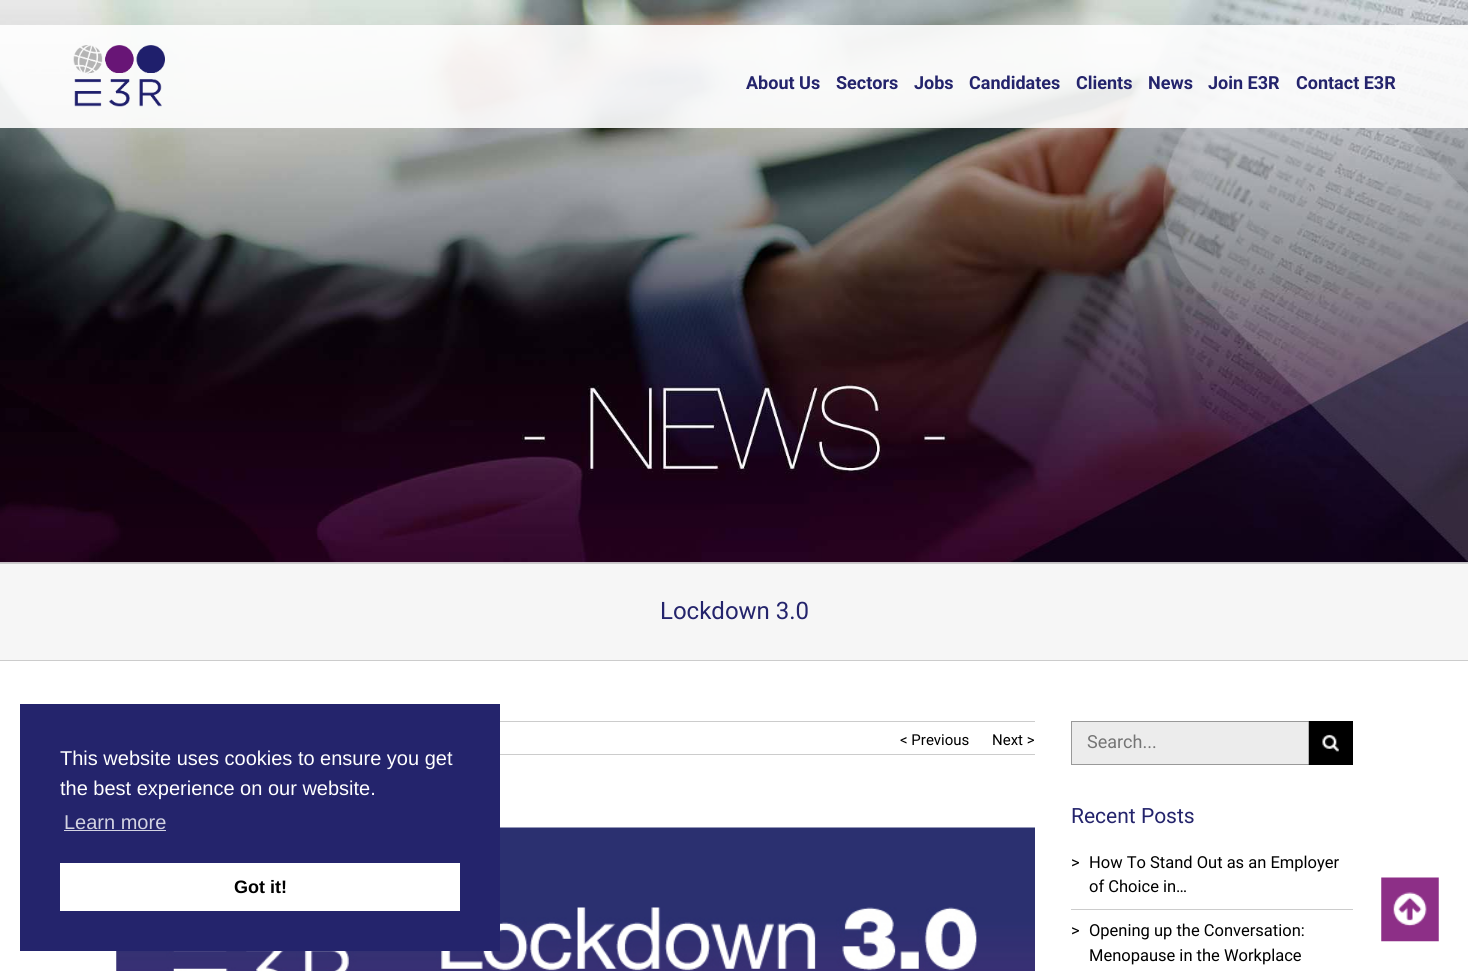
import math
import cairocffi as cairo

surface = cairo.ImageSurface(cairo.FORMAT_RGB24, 1468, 971)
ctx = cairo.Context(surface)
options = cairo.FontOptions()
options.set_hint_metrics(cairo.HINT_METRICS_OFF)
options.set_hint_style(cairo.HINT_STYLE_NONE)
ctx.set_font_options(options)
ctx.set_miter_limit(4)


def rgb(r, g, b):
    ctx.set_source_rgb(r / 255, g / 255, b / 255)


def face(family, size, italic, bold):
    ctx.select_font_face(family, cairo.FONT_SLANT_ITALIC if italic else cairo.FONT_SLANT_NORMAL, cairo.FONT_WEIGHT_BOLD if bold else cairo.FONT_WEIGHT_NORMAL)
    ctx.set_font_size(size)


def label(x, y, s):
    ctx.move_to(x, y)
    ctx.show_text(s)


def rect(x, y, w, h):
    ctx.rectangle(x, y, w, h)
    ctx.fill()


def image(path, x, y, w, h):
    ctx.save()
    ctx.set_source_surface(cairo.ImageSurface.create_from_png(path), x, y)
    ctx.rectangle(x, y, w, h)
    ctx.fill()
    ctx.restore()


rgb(255, 255, 255)
ctx.paint()
image('image0.png', 0, 0, 1468, 563)
ctx.set_source_rgba(1, 1, 1, 0.9)
rect(0, 25, 1468, 103)
image('image1.png', 73, 45, 92, 62)
face('Roboto', 18, 0, 1)
rgb(36, 36, 108)
label(746, 89, 'About Us')
label(836, 89, 'Sectors')
label(914, 89, 'Jobs')
label(969, 89, 'Candidates')
label(1076, 89, 'Clients')
label(1148, 89, 'News')
label(1208, 89, 'Join E3R')
label(1296, 89, 'Contact E3R')
rgb(246, 246, 246)
rect(0, 564, 1468, 96)
rgb(204, 204, 204)
rect(0, 563, 1468, 1)
rect(0, 660, 1468, 1)
face('Roboto', 24, 0, 0)
rgb(36, 36, 108)
label(660, 619, 'Lockdown 3.0')
image('image2.png', 116, 827, 919, 144)
rect(20, 704, 480, 247)
face('Liberation Sans', 20, 0, 0)
rgb(255, 255, 255)
label(60, 765, 'This website uses cookies to ensure you get')
label(60, 795, 'the best experience on our website.')
rgb(211, 211, 226)
label(64, 829, 'Learn more')
rect(64, 830, 102, 1)
rgb(255, 255, 255)
rect(60, 863, 400, 48)
face('Liberation Sans', 18, 0, 1)
rgb(0, 0, 0)
label(234, 893, 'Got it!')
rgb(204, 204, 204)
rect(500, 721, 535, 1)
rect(500, 754, 535, 1)
face('Roboto', 15, 0, 0)
rgb(0, 0, 0)
label(900, 745, '< Previous')
label(992, 745, 'Next >')
rgb(236, 236, 236)
rect(1072, 722, 237, 42)
ctx.rectangle(1071.5, 721.5, 281, 43)
rgb(153, 153, 153)
ctx.set_line_width(1)
ctx.stroke()
face('Roboto', 18, 0, 0)
rgb(117, 117, 117)
label(1087, 748, 'Search...')
rgb(0, 0, 0)
rect(1309, 721, 44, 44)
image('image3.png', 1308, 721, 31, 44)
face('Roboto', 21, 0, 0)
rgb(36, 36, 108)
label(1071, 823, 'Recent Posts')
rgb(204, 204, 204)
rect(1071, 909, 282, 1)
face('Roboto', 16.5, 0, 0)
rgb(0, 0, 0)
label(1071, 868, '>')
label(1089, 868, 'How To Stand Out as an Employer')
label(1089, 892, 'of Choice in…')
label(1071, 936, '>')
label(1089, 936, 'Opening up the Conversation:')
label(1089, 961, 'Menopause in the Workplace')
image('image4.png', 1381, 877, 58, 65)
surface.write_to_png('render.png')
